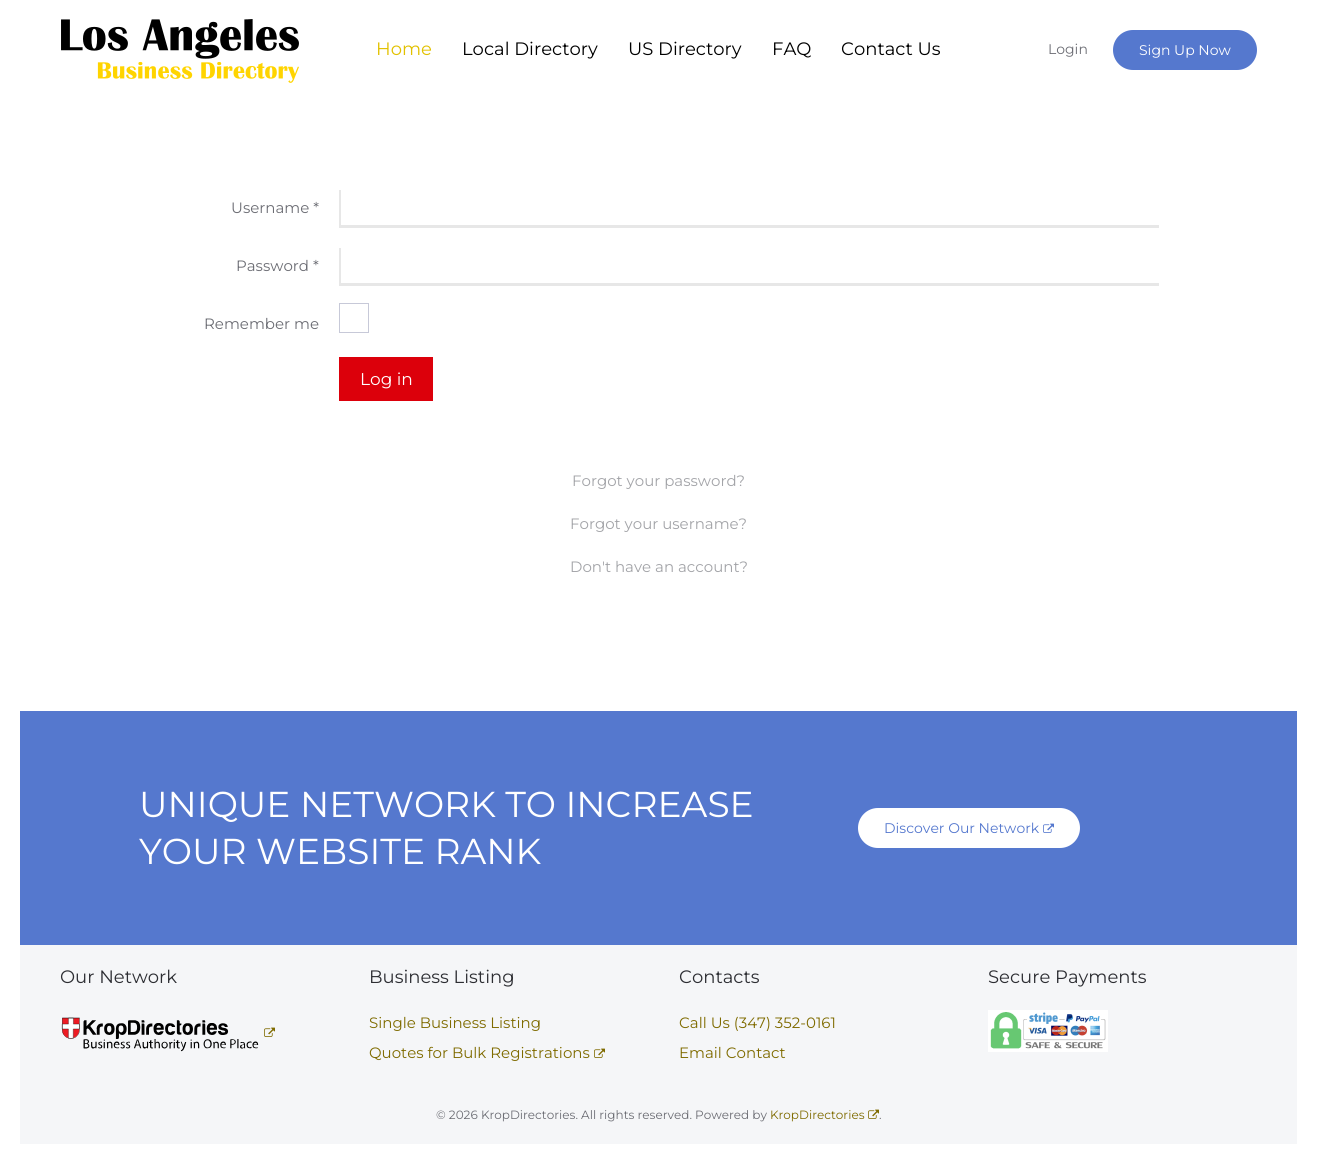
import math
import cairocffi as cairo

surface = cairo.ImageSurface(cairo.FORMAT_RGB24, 1317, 1164)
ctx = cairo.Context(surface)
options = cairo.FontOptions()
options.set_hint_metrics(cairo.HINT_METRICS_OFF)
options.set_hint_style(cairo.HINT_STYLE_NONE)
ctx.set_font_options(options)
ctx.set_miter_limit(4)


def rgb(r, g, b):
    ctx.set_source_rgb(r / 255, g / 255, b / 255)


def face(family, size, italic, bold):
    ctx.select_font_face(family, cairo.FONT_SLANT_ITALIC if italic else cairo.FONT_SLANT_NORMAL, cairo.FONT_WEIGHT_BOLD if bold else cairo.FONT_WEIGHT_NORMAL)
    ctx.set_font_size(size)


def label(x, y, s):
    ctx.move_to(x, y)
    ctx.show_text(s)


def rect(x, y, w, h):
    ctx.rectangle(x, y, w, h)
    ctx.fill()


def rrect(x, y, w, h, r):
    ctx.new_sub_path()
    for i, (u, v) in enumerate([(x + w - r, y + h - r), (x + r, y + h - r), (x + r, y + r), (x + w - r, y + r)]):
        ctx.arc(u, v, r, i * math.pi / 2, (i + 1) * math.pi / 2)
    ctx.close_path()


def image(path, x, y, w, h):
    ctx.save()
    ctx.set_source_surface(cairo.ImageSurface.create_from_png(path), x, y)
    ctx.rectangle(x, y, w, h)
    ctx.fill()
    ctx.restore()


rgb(255, 255, 255)
ctx.paint()
image('image0.png', 61, 19, 238, 64)
face('Montserrat Thin', 18, 0, 0)
rgb(226, 193, 0)
label(376, 55, 'Home')
rgb(0, 0, 0)
label(462, 55, 'Local Directory')
label(628, 55, 'US Directory')
label(772, 55, 'FAQ')
label(841, 55, 'Contact Us')
face('Montserrat Thin', 14, 0, 0)
rgb(108, 109, 116)
label(1048, 54, 'Login')
rgb(85, 120, 206)
rrect(1113, 30, 144, 40, 20)
ctx.fill()
rgb(255, 255, 255)
label(1139, 55, 'Sign Up Now')
face('Montserrat Thin', 15, 0, 0)
rgb(108, 109, 116)
label(231, 213, 'Username *')
rgb(231, 231, 231)
rect(339, 225, 820, 3)
rect(339, 190, 2, 38)
rgb(108, 109, 116)
label(236, 271, 'Password *')
rgb(231, 231, 231)
rect(339, 283, 820, 3)
rect(339, 248, 2, 38)
rgb(108, 109, 116)
label(204, 329, 'Remember me')
ctx.rectangle(339.5, 303.5, 29, 29)
rgb(199, 201, 216)
ctx.set_line_width(1)
ctx.stroke()
rgb(220, 0, 11)
rect(339, 357, 94, 44)
face('Montserrat Thin', 17, 0, 0)
rgb(255, 255, 255)
label(360, 385, 'Log in')
face('Montserrat Thin', 15, 0, 0)
rgb(163, 164, 168)
label(572, 486, 'Forgot your password?')
label(570, 529, 'Forgot your username?')
label(570, 572, 'Don\'t have an account?')
rgb(85, 120, 206)
rect(20, 711, 1277, 234)
face('Montserrat Thin', 36, 0, 0)
rgb(255, 255, 255)
label(139, 817, 'UNIQUE NETWORK TO INCREASE')
label(139, 864, 'YOUR WEBSITE RANK')
rrect(858, 808, 222, 40, 20)
ctx.fill()
face('Montserrat Thin', 14, 0, 0)
rgb(85, 120, 206)
label(884, 833, 'Discover Our Network')
image('image1.png', 1043, 823, 11, 10)
rgb(245, 246, 248)
rect(20, 945, 1277, 199)
face('Montserrat Thin', 18, 0, 0)
rgb(45, 46, 51)
label(60, 983, 'Our Network')
image('image2.png', 61, 1017, 198, 35)
image('image3.png', 264, 1027, 11, 10)
label(369, 983, 'Business Listing')
face('Montserrat Thin', 15, 0, 0)
rgb(127, 107, 0)
label(369, 1028, 'Single Business Listing')
label(369, 1058, 'Quotes for Bulk Registrations')
image('image3.png', 594, 1048, 11, 10)
face('Montserrat Thin', 18, 0, 0)
rgb(45, 46, 51)
label(679, 983, 'Contacts')
face('Montserrat Thin', 15, 0, 0)
rgb(127, 107, 0)
label(679, 1028, 'Call Us (347) 352-0161')
label(679, 1058, 'Email Contact')
face('Montserrat Thin', 18, 0, 0)
rgb(45, 46, 51)
label(988, 983, 'Secure Payments')
image('image4.png', 988, 1010, 120, 42)
face('Montserrat Thin', 12, 0, 0)
rgb(108, 109, 116)
label(436, 1119, '© 2026 KropDirectories. All rights reserved. Powered by')
rgb(127, 107, 0)
label(770, 1119, 'KropDirectories')
image('image3.png', 868, 1109, 11, 10)
rgb(108, 109, 116)
label(879, 1119, '.')
surface.write_to_png('render.png')
